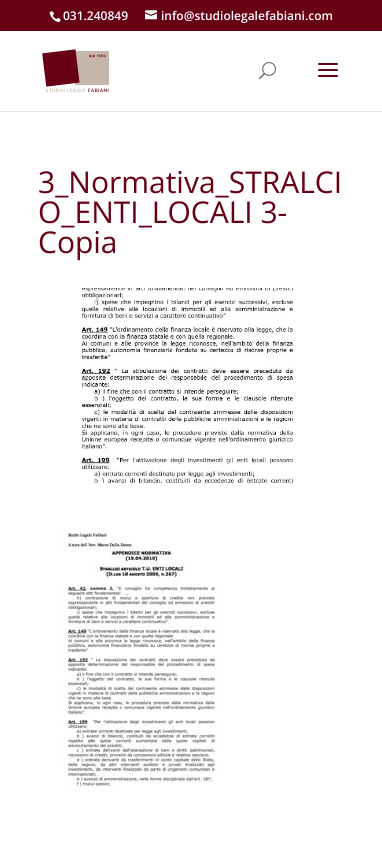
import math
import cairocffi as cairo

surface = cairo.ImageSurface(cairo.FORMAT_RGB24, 382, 852)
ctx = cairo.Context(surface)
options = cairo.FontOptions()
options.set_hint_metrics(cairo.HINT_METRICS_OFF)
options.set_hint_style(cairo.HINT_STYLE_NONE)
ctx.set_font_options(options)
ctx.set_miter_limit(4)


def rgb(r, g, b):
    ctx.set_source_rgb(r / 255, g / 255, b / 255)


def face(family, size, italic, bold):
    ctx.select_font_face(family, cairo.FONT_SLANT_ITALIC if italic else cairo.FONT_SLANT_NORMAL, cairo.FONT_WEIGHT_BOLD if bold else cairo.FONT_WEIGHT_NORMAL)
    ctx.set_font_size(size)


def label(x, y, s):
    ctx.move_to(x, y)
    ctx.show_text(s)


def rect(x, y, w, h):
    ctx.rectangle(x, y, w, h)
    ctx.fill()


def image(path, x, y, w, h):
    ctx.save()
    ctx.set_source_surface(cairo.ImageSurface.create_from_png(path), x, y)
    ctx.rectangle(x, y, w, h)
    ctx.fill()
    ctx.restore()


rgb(255, 255, 255)
ctx.paint()
rgb(104, 1, 20)
rect(0, 0, 382, 31)
image('image0.png', 49, 11, 12, 12)
face('Open Sans SemiBold', 12, 0, 0)
rgb(255, 255, 255)
label(63, 20, '031.240849')
image('image1.png', 145, 10, 12, 10)
label(161, 20, 'info@studiolegalefabiani.com')
rgb(230, 230, 230)
rect(0, 111, 382, 1)
image('image2.png', 42, 49, 67, 44)
image('image3.png', 259, 62, 17, 18)
image('image4.png', 318, 63, 20, 14)
face('Open Sans', 30, 0, 0)
rgb(104, 1, 20)
label(38, 193, '3_Normativa_STRALCI')
label(38, 223, 'O_ENTI_LOCALI 3-')
label(38, 253, 'Copia')
image('image5.png', 80, 288, 215, 195)
image('image6.png', 62, 528, 160, 264)
surface.write_to_png('render.png')
